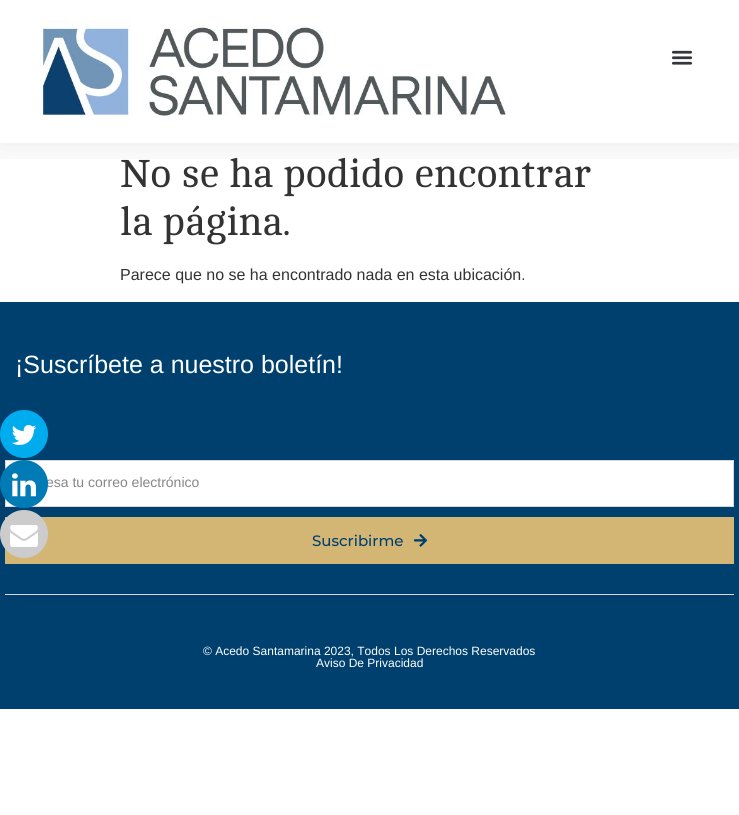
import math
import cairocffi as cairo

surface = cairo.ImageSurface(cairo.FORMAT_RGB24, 739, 815)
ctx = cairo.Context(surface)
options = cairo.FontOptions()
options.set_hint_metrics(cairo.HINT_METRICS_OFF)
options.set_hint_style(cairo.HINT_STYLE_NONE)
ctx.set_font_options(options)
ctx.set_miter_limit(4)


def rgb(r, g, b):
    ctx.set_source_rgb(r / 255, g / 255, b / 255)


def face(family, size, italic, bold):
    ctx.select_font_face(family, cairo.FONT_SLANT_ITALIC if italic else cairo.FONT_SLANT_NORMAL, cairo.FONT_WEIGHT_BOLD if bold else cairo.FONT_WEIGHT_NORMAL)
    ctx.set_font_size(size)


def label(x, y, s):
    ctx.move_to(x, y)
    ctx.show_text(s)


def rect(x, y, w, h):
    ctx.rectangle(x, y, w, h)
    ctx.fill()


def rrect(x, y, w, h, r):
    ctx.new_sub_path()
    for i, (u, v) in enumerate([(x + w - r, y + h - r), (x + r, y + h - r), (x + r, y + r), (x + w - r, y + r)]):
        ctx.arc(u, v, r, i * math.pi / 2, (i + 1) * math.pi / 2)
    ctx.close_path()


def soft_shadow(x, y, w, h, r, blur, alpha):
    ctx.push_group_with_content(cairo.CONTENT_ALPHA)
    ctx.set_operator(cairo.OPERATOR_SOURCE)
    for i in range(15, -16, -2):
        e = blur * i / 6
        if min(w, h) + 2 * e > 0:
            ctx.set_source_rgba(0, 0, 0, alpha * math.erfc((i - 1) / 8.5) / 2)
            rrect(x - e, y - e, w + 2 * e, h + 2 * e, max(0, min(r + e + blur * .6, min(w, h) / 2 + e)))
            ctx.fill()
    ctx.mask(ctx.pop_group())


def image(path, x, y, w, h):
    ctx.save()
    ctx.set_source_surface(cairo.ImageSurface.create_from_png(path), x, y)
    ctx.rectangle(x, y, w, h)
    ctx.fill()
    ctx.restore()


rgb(255, 255, 255)
ctx.paint()
ctx.save()
ctx.rectangle(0, 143, 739, 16)
ctx.clip()
rgb(0, 0, 0)
soft_shadow(0, 0, 739, 143, 0, 19, 0.1)
ctx.restore()
image('image0.png', 40, 20, 466, 100)
image('image1.png', 671, 50, 22, 15)
face('Cambo', 40, 0, 0)
rgb(51, 51, 51)
label(120, 187, 'No se ha podido encontrar')
label(120, 235, 'la página.')
face('Liberation Sans', 16, 0, 0)
label(120, 280, 'Parece que no se ha encontrado nada en esta ubicación.')
rgb(0, 64, 110)
rect(0, 302, 739, 407)
face('Liberation Sans', 25, 0, 0)
rgb(255, 255, 255)
label(15, 373, '¡Suscríbete a nuestro boletín!')
ctx.rectangle(5.5, 460.5, 728, 46)
ctx.fill_preserve()
rgb(216, 216, 216)
ctx.set_line_width(1)
ctx.stroke()
face('Liberation Sans', 14, 0, 0)
rgb(134, 134, 134)
label(46, 487, 'esa tu correo electrónico')
rgb(211, 181, 116)
rect(5, 517, 729, 47)
face('Montserrat Medium', 15, 0, 0)
rgb(0, 64, 110)
label(312, 546, 'Suscribirme')
image('image2.png', 414, 534, 14, 13)
rgb(216, 216, 216)
rect(5, 594, 729, 1)
face('Liberation Sans', 12, 0, 0)
rgb(255, 255, 255)
label(203, 655, '© Acedo Santamarina 2023, Todos Los Derechos Reservados')
label(316, 667, 'Aviso De Privacidad')
rgb(0, 172, 237)
ctx.new_path()
ctx.arc(24, 434, 24, 0, 2 * math.pi)
ctx.fill()
image('image3.png', 11, 425, 26, 20)
rgb(0, 123, 182)
ctx.arc(24, 484, 24, 0, 2 * math.pi)
ctx.fill()
image('image4.png', 12, 473, 24, 24)
rgb(204, 204, 204)
ctx.arc(24, 534, 24, 0, 2 * math.pi)
ctx.fill()
image('image5.png', 10, 525, 28, 22)
surface.write_to_png('render.png')
